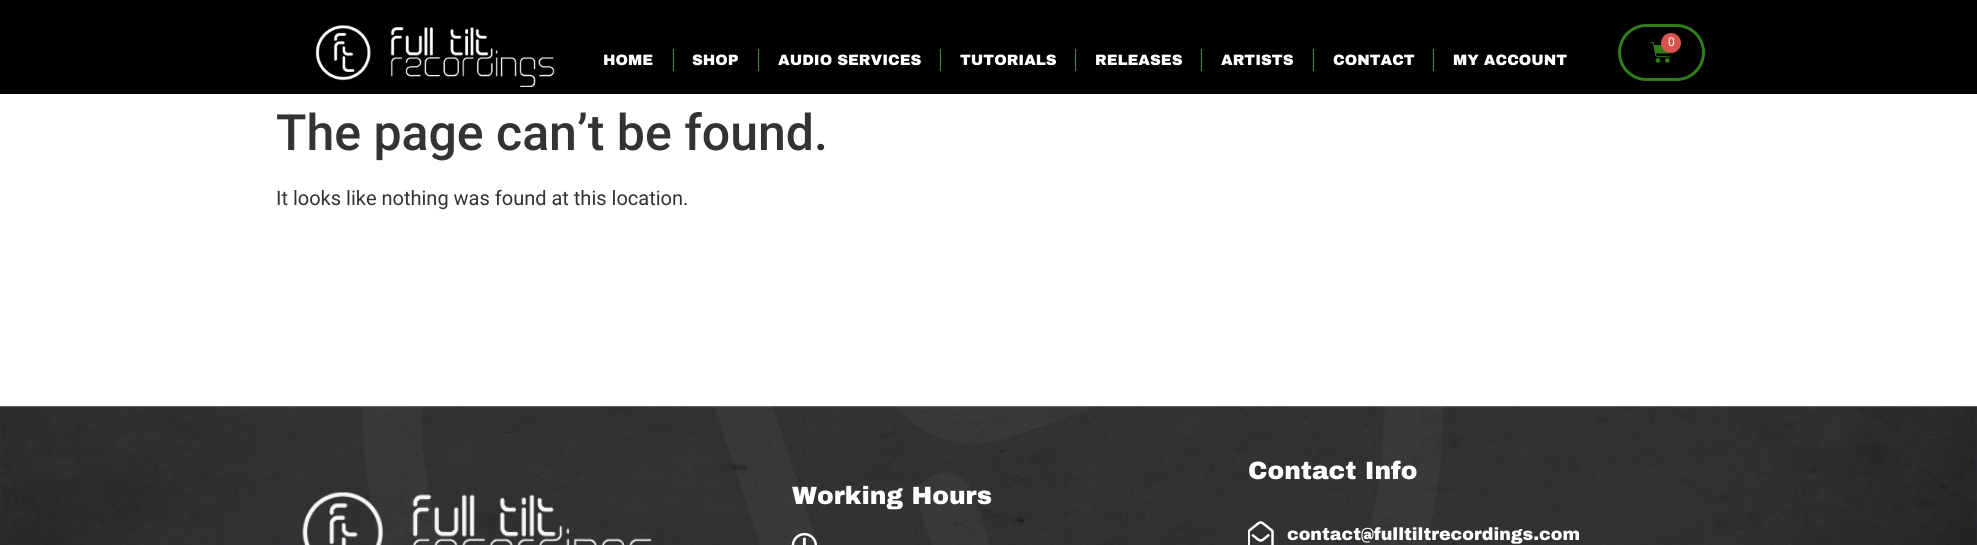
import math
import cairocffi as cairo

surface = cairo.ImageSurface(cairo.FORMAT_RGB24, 1977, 545)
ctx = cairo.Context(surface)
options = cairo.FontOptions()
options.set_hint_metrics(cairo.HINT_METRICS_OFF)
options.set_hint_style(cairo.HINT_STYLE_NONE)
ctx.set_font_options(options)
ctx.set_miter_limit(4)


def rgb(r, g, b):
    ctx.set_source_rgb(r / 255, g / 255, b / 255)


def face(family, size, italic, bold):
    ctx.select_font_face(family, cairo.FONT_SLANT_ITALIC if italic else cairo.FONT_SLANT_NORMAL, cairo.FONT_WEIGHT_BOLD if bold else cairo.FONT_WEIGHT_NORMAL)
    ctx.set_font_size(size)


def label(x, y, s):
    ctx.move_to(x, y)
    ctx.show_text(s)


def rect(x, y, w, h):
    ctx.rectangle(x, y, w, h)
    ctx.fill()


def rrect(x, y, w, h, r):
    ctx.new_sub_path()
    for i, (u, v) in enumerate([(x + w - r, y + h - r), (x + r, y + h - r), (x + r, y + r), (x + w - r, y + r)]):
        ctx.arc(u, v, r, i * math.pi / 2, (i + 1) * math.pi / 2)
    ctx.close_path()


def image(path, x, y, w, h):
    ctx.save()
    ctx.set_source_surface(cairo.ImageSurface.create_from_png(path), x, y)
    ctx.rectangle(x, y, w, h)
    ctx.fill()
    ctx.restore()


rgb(255, 255, 255)
ctx.paint()
rgb(0, 0, 0)
rect(0, 0, 1977, 94)
image('image0.png', 315, 25, 240, 62)
rrect(1619.5, 25.5, 84, 54, 27)
rgb(51, 124, 28)
ctx.set_line_width(3)
ctx.stroke()
image('image1.png', 1650, 42, 21, 21)
rgb(217, 83, 79)
ctx.arc(1671, 43, 10, 0, 2 * math.pi)
ctx.fill()
face('Roboto', 12, 0, 0)
rgb(255, 255, 255)
label(1668, 46, '0')
face('Archivo Black Black', 15, 0, 0)
label(603, 65, 'HOME')
rgb(63, 146, 37)
rect(673, 49, 1, 22)
rgb(255, 255, 255)
label(692, 65, 'SHOP')
rgb(63, 146, 37)
rect(758, 49, 1, 22)
rgb(255, 255, 255)
label(778, 65, 'AUDIO SERVICES')
rgb(63, 146, 37)
rect(940, 49, 1, 22)
rgb(255, 255, 255)
label(960, 65, 'TUTORIALS')
rgb(63, 146, 37)
rect(1075, 49, 1, 22)
rgb(255, 255, 255)
label(1095, 65, 'RELEASES')
rgb(63, 146, 37)
rect(1201, 49, 1, 22)
rgb(255, 255, 255)
label(1221, 65, 'ARTISTS')
rgb(63, 146, 37)
rect(1313, 49, 1, 22)
rgb(255, 255, 255)
label(1333, 65, 'CONTACT')
rgb(63, 146, 37)
rect(1433, 49, 1, 22)
rgb(255, 255, 255)
label(1453, 65, 'MY ACCOUNT')
face('Roboto Medium', 50, 0, 0)
rgb(51, 51, 51)
label(276, 150, 'The page can’t be found.')
face('Roboto', 20, 0, 0)
label(276, 205, 'It looks like nothing was found at this location.')
image('image2.png', 0, 406, 1977, 139)
image('image3.png', 302, 492, 350, 53)
face('Archivo Black Black', 25, 0, 0)
rgb(255, 255, 255)
label(792, 504, 'Working Hours')
image('image4.png', 791, 533, 26, 12)
label(1248, 479, 'Contact Info')
image('image5.png', 1248, 521, 26, 24)
face('Archivo Black Black', 17.5, 0, 0)
label(1287, 540, 'contact@fulltiltrecordings.com')
surface.write_to_png('render.png')
